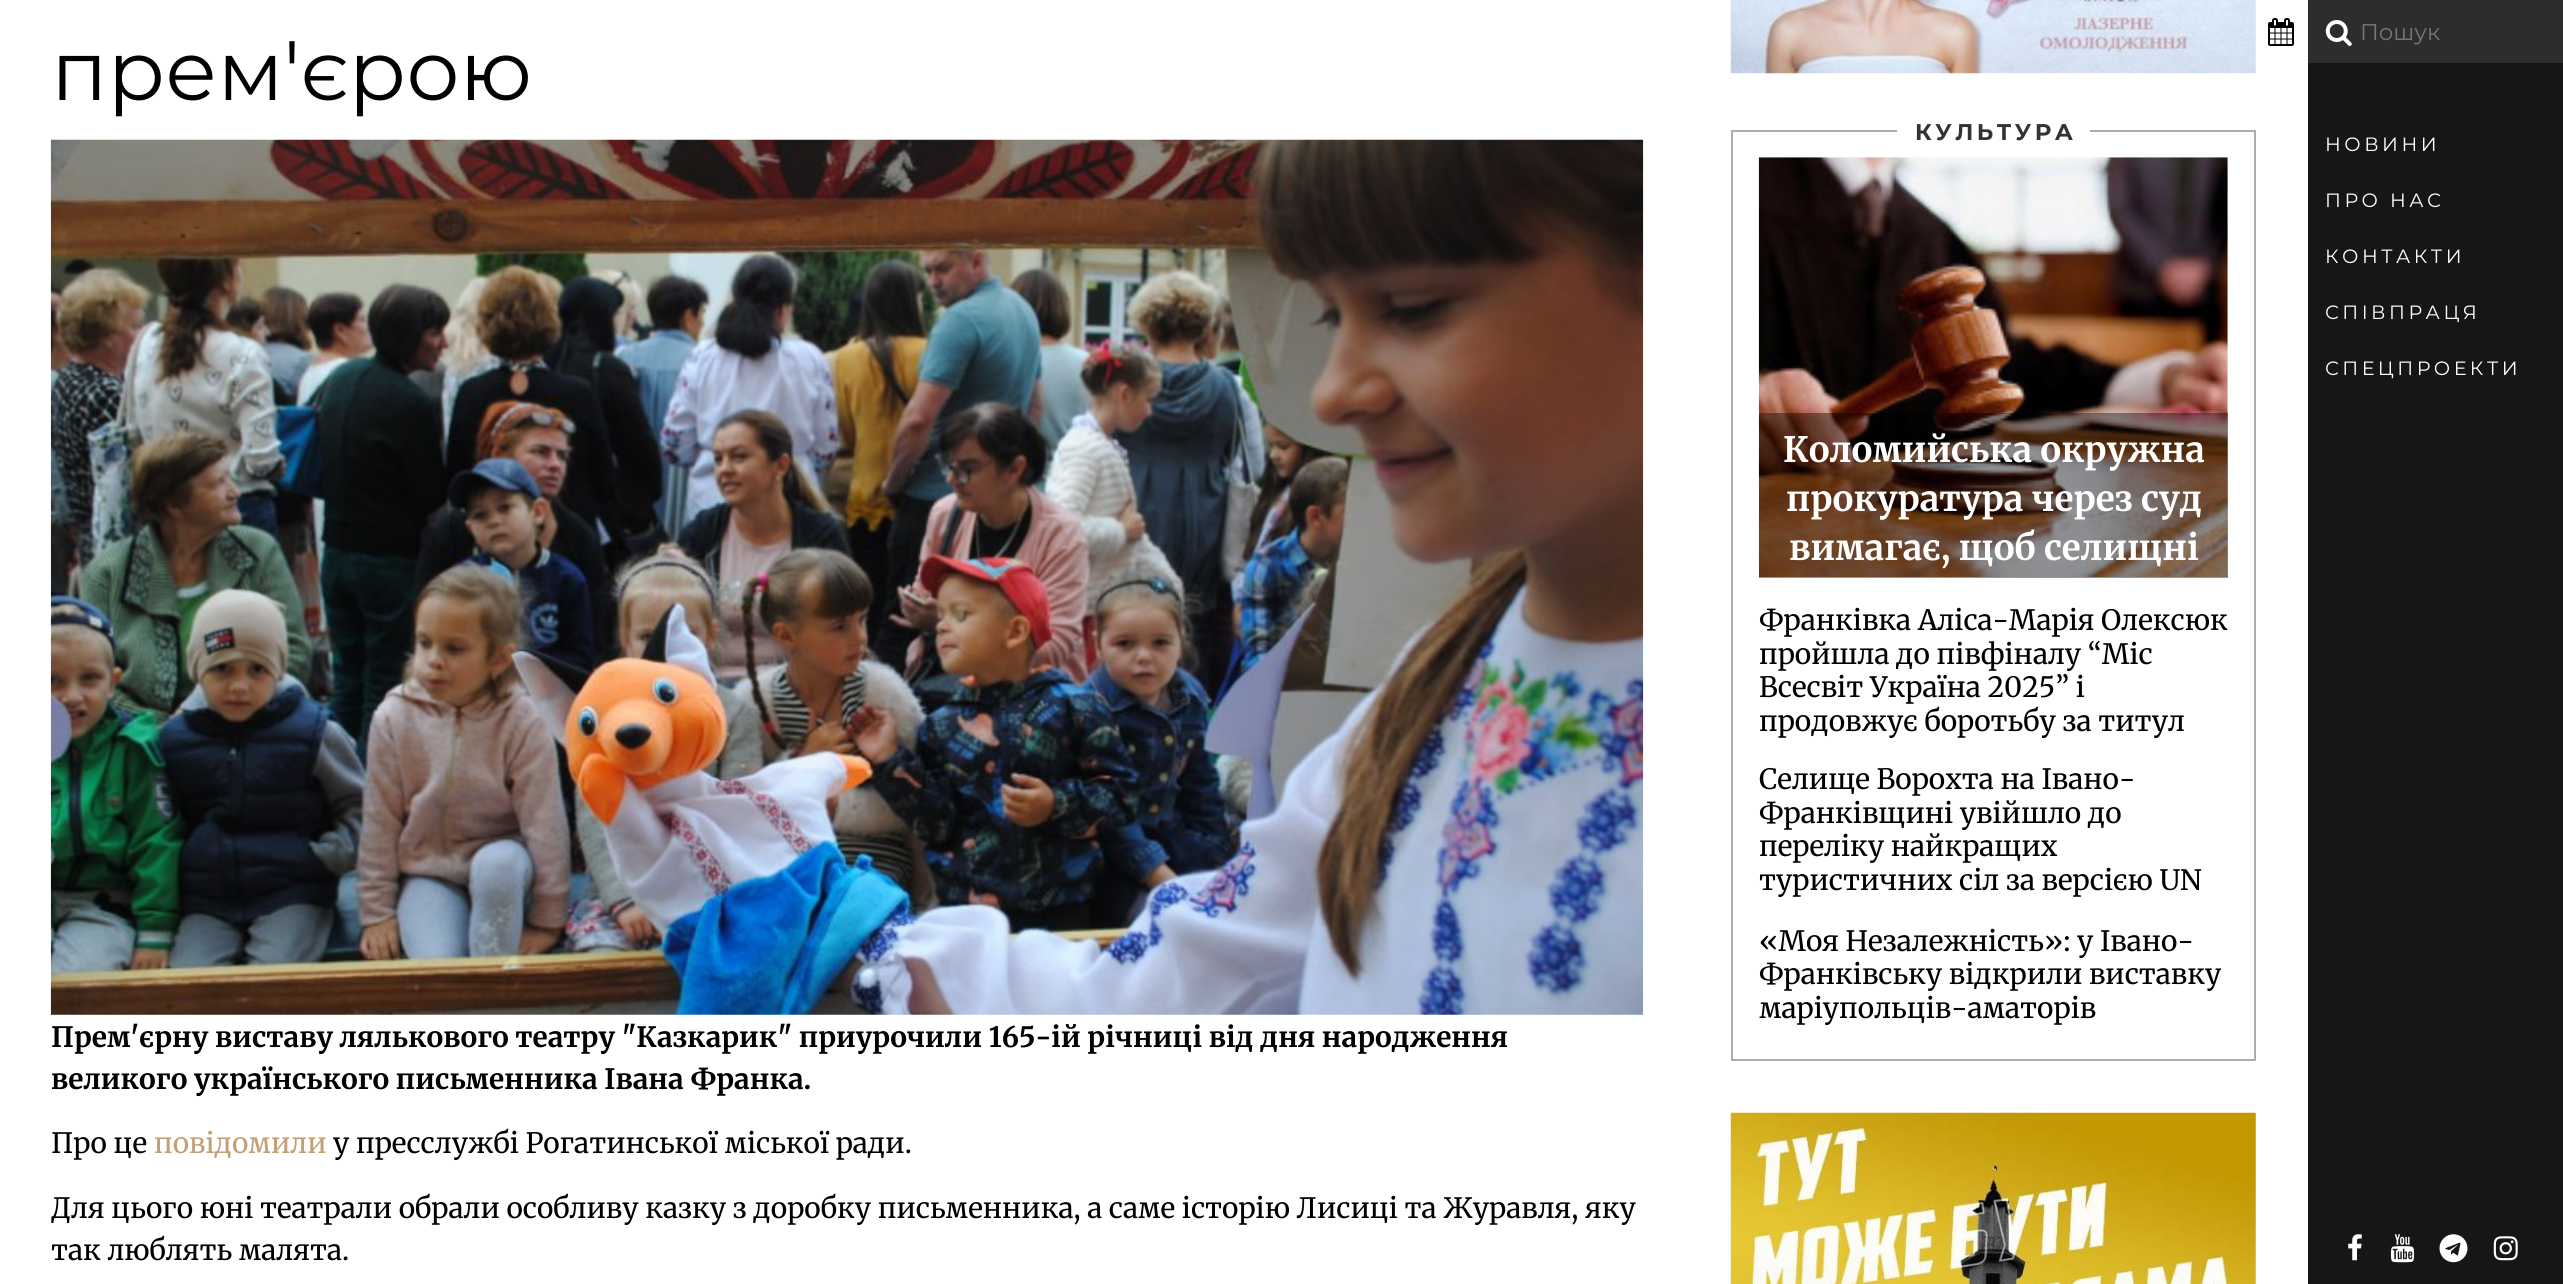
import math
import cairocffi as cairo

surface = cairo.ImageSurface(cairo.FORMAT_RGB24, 2563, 1284)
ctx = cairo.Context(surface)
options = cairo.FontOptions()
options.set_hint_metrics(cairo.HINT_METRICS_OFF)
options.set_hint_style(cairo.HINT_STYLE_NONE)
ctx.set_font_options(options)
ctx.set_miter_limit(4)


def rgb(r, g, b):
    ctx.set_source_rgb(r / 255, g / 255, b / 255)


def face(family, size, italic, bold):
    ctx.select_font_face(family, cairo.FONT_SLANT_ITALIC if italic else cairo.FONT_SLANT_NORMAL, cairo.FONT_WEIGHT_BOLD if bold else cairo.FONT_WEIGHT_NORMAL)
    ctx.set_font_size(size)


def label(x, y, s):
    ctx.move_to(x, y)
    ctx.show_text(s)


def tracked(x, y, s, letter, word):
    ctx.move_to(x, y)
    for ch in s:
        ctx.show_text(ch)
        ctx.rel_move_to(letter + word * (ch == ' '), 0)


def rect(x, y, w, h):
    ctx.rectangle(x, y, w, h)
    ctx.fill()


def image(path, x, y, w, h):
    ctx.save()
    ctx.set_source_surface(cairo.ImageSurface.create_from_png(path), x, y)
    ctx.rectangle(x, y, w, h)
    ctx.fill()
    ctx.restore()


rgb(255, 255, 255)
ctx.paint()
face('Montserrat', 84, 0, 0)
rgb(0, 0, 0)
label(51, 100, 'прем\'єрою')
image('image0.png', 50, 139, 1594, 876)
face('Merriweather', 28, 0, 1)
label(51, 1047, 'Прем\'єрну виставу лялькового театру "Казкарик" приурочили 165-ій річниці від дня народження')
label(51, 1089, 'великого українського письменника Івана Франка.')
face('Merriweather', 28, 0, 0)
label(51, 1153, 'Про це')
rgb(195, 159, 118)
label(154, 1153, 'повідомили')
rgb(0, 0, 0)
label(333, 1153, 'у пресслужбі Рогатинської міської ради.')
label(51, 1218, 'Для цього юні театрали обрали особливу казку з доробку письменника, а саме історію Лисиці та Журавля, яку')
label(51, 1260, 'так люблять малята.')
image('image1.png', 1730, 0, 526, 74)
ctx.rectangle(1732, 131, 523, 929)
rgb(173, 173, 173)
ctx.stroke()
rgb(255, 255, 255)
rect(1897, 130, 193, 2)
face('Montserrat', 22.75, 0, 1)
rgb(51, 51, 51)
tracked(1915, 140, 'КУЛЬТУРА', 3.5, 0)
image('image2.png', 1758, 157, 470, 421)
ctx.set_source_rgba(0, 0, 0, 0.4)
rect(1759, 413, 469, 165)
face('Merriweather', 35, 0, 1)
rgb(255, 255, 255)
label(1783, 462, 'Коломийська окружна')
label(1786, 511, 'прокуратура через суд')
label(1789, 560, 'вимагає, щоб селищні')
face('Merriweather', 28, 0, 0)
rgb(0, 0, 0)
label(1759, 630, 'Франківка Аліса-Марія Олексюк')
label(1759, 664, 'пройшла до півфіналу “Міс')
label(1759, 697, 'Всесвіт Україна 2025” і')
label(1759, 731, 'продовжує боротьбу за титул')
label(1759, 789, 'Селище Ворохта на Івано-')
label(1759, 823, 'Франківщині увійшло до')
label(1759, 856, 'переліку найкращих')
label(1759, 890, 'туристичних сіл за версією UN')
label(1759, 951, '«Моя Незалежність»: у Івано-')
label(1759, 984, 'Франківську відкрили виставку')
label(1759, 1018, 'маріупольців-аматорів')
image('image3.png', 1730, 1112, 526, 172)
rgb(22, 22, 22)
rect(2308, 63, 255, 1221)
image('image4.png', 2268, 18, 26, 28)
rgb(45, 45, 45)
rect(2308, 0, 255, 63)
image('image5.png', 2325, 20, 27, 26)
face('Montserrat', 22.75, 0, 0)
rgb(117, 117, 117)
label(2360, 40, 'Пошук')
face('Montserrat', 19.25, 0, 0)
rgb(255, 255, 255)
tracked(2325, 151, 'НОВИНИ', 3.5, 0)
tracked(2325, 207, 'ПРО НАС', 3.5, 0)
tracked(2325, 263, 'КОНТАКТИ', 3.5, 0)
tracked(2325, 319, 'СПІВПРАЦЯ', 3.5, 0)
tracked(2325, 375, 'СПЕЦПРОЕКТИ', 3.5, 0)
image('image6.png', 2348, 1234, 14, 27)
image('image7.png', 2390, 1234, 25, 29)
image('image8.png', 2439, 1234, 29, 29)
image('image9.png', 2493, 1236, 25, 25)
surface.write_to_png('render.png')
